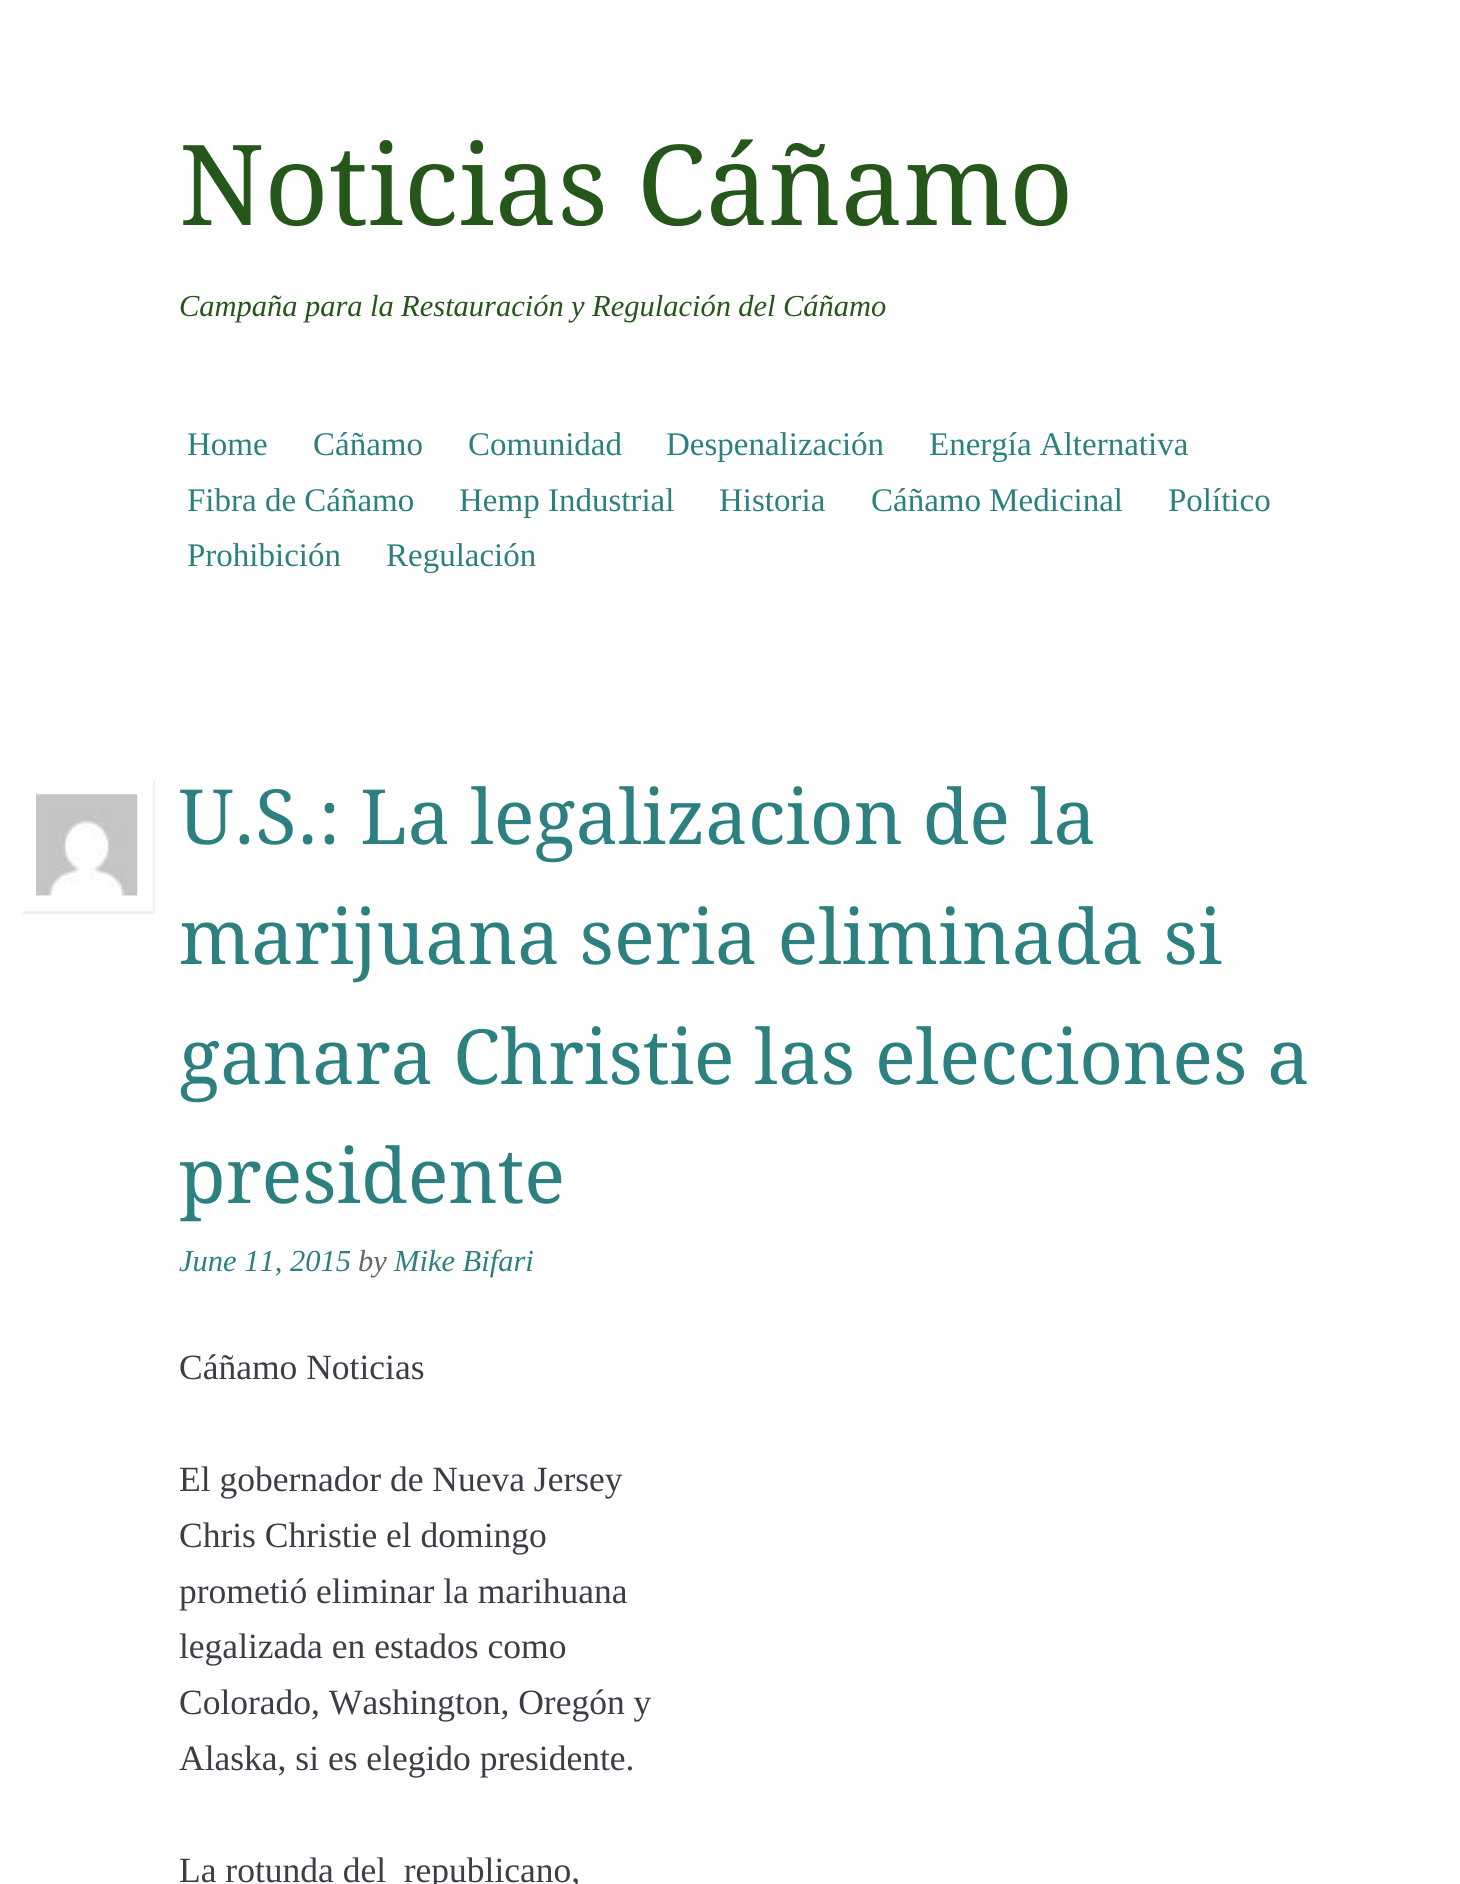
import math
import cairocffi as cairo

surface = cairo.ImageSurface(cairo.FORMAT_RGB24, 1460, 1884)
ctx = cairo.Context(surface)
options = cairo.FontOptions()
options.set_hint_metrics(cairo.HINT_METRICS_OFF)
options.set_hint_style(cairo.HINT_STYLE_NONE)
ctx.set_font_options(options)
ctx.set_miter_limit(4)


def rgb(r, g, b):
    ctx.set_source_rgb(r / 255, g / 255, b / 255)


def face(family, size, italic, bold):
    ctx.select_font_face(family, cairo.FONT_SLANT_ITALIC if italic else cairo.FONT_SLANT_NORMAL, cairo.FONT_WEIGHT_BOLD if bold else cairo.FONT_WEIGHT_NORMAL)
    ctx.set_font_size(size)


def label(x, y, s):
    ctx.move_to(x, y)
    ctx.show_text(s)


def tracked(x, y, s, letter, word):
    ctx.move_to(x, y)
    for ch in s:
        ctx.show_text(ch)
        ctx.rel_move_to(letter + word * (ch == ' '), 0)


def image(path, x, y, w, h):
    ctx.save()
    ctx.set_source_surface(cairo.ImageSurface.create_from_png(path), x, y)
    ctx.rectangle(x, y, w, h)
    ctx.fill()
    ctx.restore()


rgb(255, 255, 255)
ctx.paint()
face('Droid Serif', 111.75, 0, 0)
rgb(37, 86, 26)
label(179, 225, 'Noticias Cáñamo')
face('Liberation Serif', 30.5, 1, 0)
tracked(179, 316, 'Campaña para la Restauración y Regulación del Cáñamo', 0, -0.25)
face('Liberation Serif', 33, 0, 0)
rgb(44, 128, 127)
label(187, 455, 'Home')
label(313, 455, 'Cáñamo')
label(468, 455, 'Comunidad')
label(666, 455, 'Despenalización')
label(929, 455, 'Energía Alternativa')
label(187, 511, 'Fibra de Cáñamo')
label(459, 511, 'Hemp Industrial')
label(719, 511, 'Historia')
label(871, 511, 'Cáñamo Medicinal')
label(1168, 511, 'Político')
label(187, 566, 'Prohibición')
label(386, 566, 'Regulación')
rgb(242, 239, 244)
ctx.new_path()
ctx.move_to(23, 911)
ctx.line_to(23, 914)
ctx.line_to(155, 914)
ctx.line_to(155, 781)
ctx.line_to(153, 781)
ctx.line_to(153, 911)
ctx.close_path()
ctx.fill()
image('image0.png', 36, 794, 102, 102)
face('Droid Serif', 76.1, 0, 0)
rgb(44, 128, 127)
label(179, 844, 'U.S.: La legalizacion de la')
label(179, 964, 'marijuana seria eliminada si')
label(179, 1084, 'ganara Christie las elecciones a')
label(179, 1203, 'presidente')
face('Liberation Serif', 30.5, 1, 0)
label(179, 1271, 'June 11, 2015')
rgb(102, 102, 102)
label(358, 1271, 'by')
rgb(44, 128, 127)
label(394, 1271, 'Mike Bifari')
face('Liberation Serif', 35.5, 0, 0)
rgb(60, 61, 71)
label(179, 1379, 'Cáñamo Noticias')
label(179, 1491, 'El gobernador de Nueva Jersey')
label(179, 1547, 'Chris Christie el domingo')
label(179, 1603, 'prometió eliminar la marihuana')
label(179, 1658, 'legalizada en estados como')
label(179, 1714, 'Colorado, Washington, Oregón y')
label(179, 1770, 'Alaska, si es elegido presidente.')
label(179, 1882, 'La rotunda del  republicano,')
surface.write_to_png('render.png')
